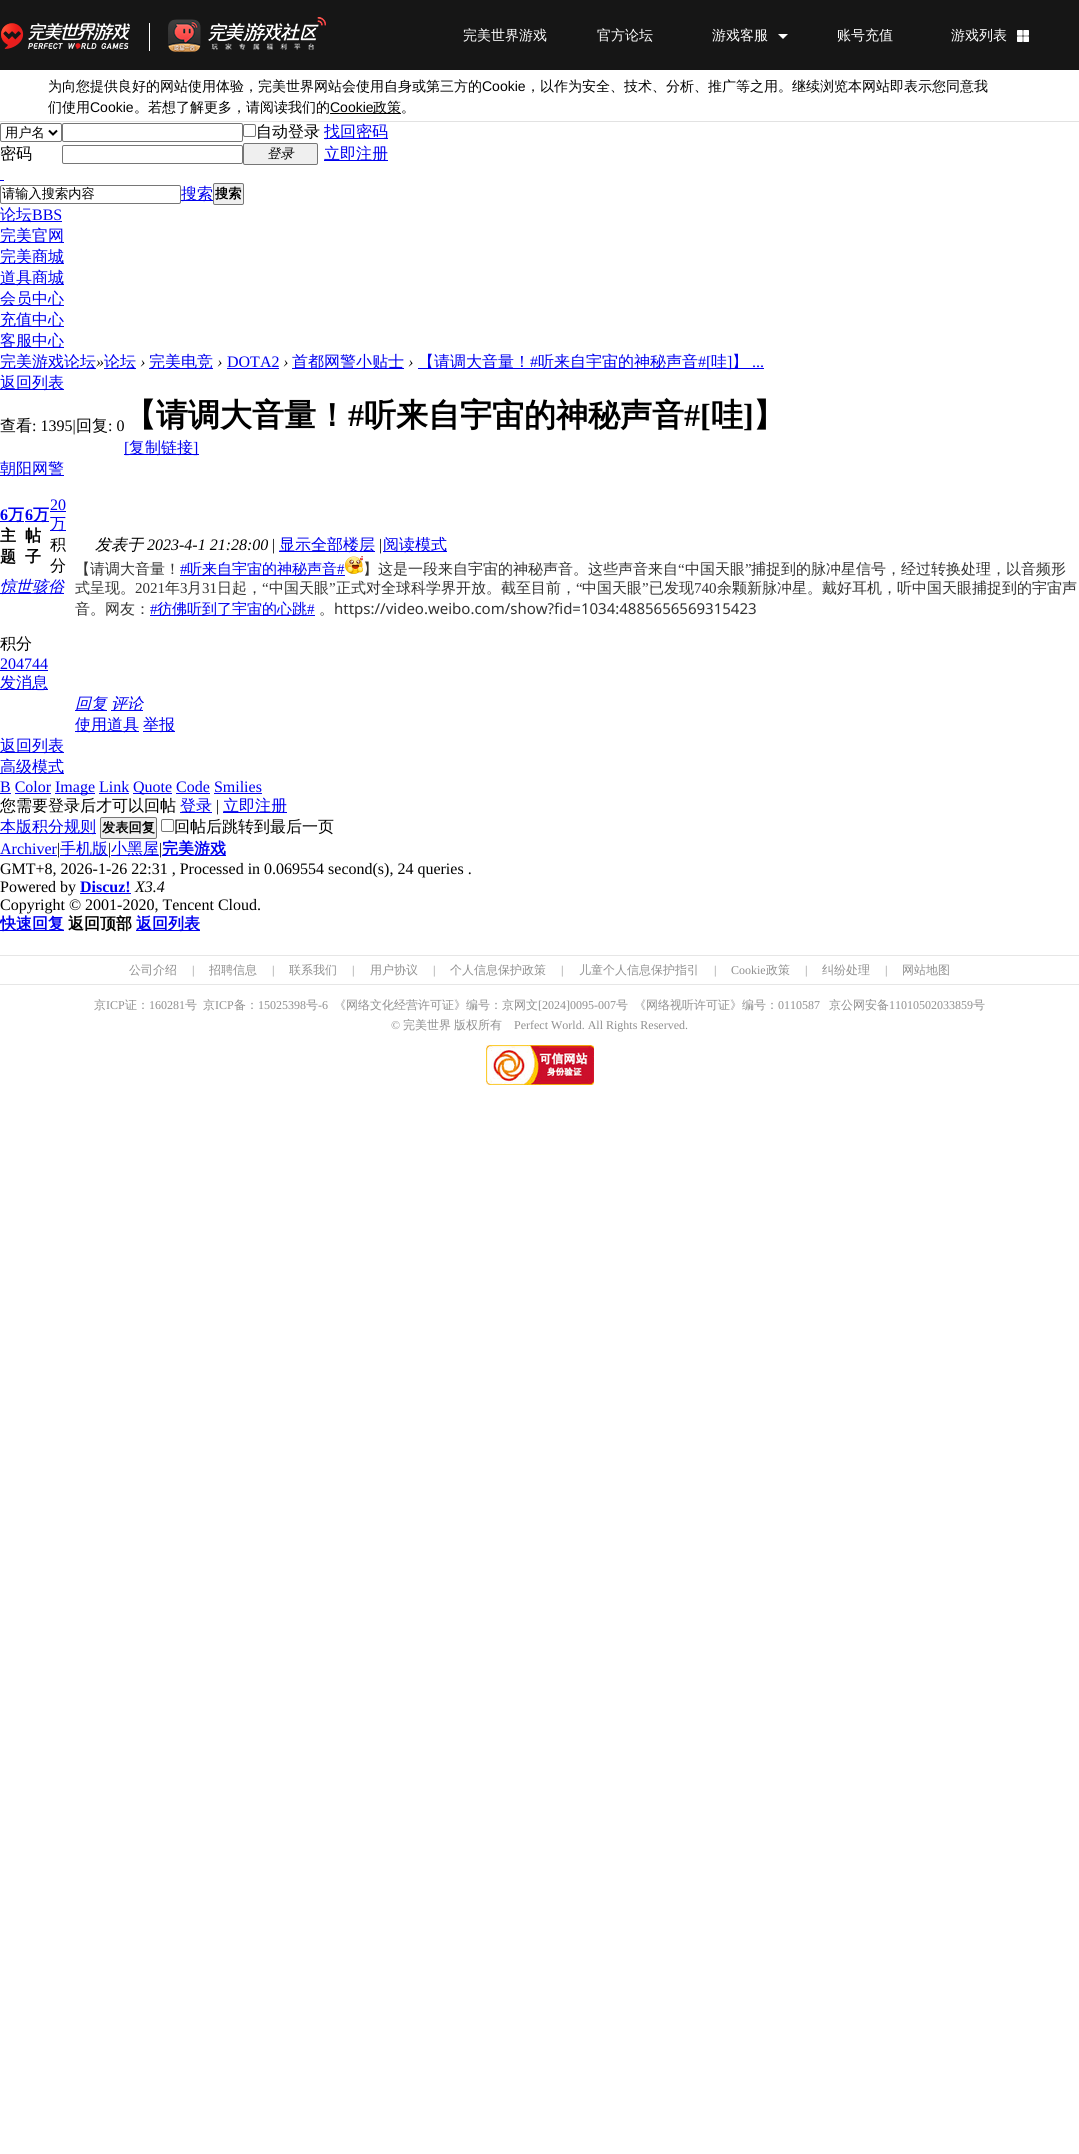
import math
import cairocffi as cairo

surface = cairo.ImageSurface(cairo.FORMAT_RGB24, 1079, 2154)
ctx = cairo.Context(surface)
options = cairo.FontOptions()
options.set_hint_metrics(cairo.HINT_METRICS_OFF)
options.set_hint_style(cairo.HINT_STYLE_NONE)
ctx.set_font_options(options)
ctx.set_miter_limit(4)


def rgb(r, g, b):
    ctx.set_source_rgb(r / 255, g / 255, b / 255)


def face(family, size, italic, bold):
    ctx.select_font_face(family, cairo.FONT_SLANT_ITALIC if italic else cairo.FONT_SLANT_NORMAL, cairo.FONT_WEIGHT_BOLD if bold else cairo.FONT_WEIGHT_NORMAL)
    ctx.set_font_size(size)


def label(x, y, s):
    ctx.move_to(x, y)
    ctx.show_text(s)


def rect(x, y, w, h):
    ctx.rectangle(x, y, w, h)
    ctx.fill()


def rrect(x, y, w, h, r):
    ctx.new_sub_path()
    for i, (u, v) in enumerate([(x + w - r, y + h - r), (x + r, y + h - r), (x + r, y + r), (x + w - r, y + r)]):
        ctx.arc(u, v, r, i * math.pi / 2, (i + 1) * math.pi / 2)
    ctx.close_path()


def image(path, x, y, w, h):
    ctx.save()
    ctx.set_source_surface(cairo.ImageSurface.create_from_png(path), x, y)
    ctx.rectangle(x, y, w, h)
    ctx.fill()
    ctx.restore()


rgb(255, 255, 255)
ctx.paint()
rgb(22, 22, 22)
rect(0, 0, 1079, 70)
image('image0.png', 1, 17, 325, 35)
face('WenQuanYi Zen Hei Medium', 14, 0, 0)
rgb(255, 255, 255)
label(463, 40, '完美世界游戏')
label(597, 40, '官方论坛')
label(712, 40, '游戏客服')
image('image1.png', 778, 34, 10, 5)
label(837, 40, '账号充值')
label(951, 40, '游戏列表')
image('image2.png', 1017, 30, 12, 12)
rgb(226, 226, 226)
rect(0, 121, 1079, 1)
rgb(0, 0, 0)
label(48, 91, '为向您提供良好的网站使用体验，完美世界网站会使用自身或第三方的')
face('Liberation Sans', 14, 0, 0)
label(482, 91, 'Cookie')
face('WenQuanYi Zen Hei Medium', 14, 0, 0)
label(526, 91, '，以作为安全、技术、分析、推广等之用。继续浏览本网站即表示您同意我')
label(48, 112, '们使用')
face('Liberation Sans', 14, 0, 0)
label(90, 112, 'Cookie')
face('WenQuanYi Zen Hei Medium', 14, 0, 0)
label(134, 112, '。若想了解更多，请阅读我们的')
face('Liberation Sans', 14, 0, 0)
label(330, 112, 'Cookie')
rect(330, 113, 71, 1)
face('WenQuanYi Zen Hei Medium', 14, 0, 0)
label(373, 112, '政策。')
rrect(0.5, 123.5, 61, 18, 1.5)
rgb(118, 118, 118)
ctx.set_line_width(1)
ctx.stroke()
ctx.new_path()
ctx.move_to(49, 130.5)
ctx.line_to(53, 134.5)
ctx.line_to(57, 130.5)
rgb(0, 0, 0)
ctx.set_line_width(2)
ctx.stroke()
face('WenQuanYi Zen Hei Medium', 13.25, 0, 0)
label(5, 137, '用户名')
rrect(62.5, 123.5, 180, 18, 1.5)
rgb(118, 118, 118)
ctx.set_line_width(1)
ctx.stroke()
rrect(243.5, 124.5, 12, 12, 1.5)
ctx.stroke()
face('WenQuanYi Zen Hei Medium', 16, 0, 0)
rgb(0, 0, 0)
label(256, 137, '自动登录')
rgb(0, 0, 238)
rect(324, 138, 64, 1)
label(324, 137, '找回密码')
rgb(0, 0, 0)
label(0, 159, '密码')
rrect(62.5, 145.5, 180, 18, 1.5)
rgb(118, 118, 118)
ctx.stroke()
rgb(239, 239, 239)
rrect(243.5, 143.5, 74, 21, 1.5)
ctx.fill_preserve()
rgb(118, 118, 118)
ctx.stroke()
face('WenQuanYi Zen Hei Medium', 13.25, 1, 0)
rgb(0, 0, 0)
label(267, 158, '登录')
rgb(0, 0, 238)
rect(324, 160, 64, 1)
face('WenQuanYi Zen Hei Medium', 16, 0, 0)
label(324, 159, '立即注册')
rect(0, 180, 4, 1)
rrect(0.5, 185.5, 180, 18, 1.5)
rgb(118, 118, 118)
ctx.stroke()
face('WenQuanYi Zen Hei Medium', 13.25, 0, 0)
rgb(0, 0, 0)
label(2, 198, '请输入搜索内容')
rgb(0, 0, 238)
rect(181, 200, 32, 1)
face('WenQuanYi Zen Hei Medium', 16, 0, 0)
label(181, 199, '搜索')
rgb(239, 239, 239)
rrect(213.5, 183.5, 30, 21, 1.5)
ctx.fill_preserve()
rgb(118, 118, 118)
ctx.stroke()
face('WenQuanYi Zen Hei', 13.25, 0, 1)
rgb(0, 0, 0)
label(215, 198, '搜索')
rgb(0, 0, 238)
rect(0, 221, 62, 1)
face('WenQuanYi Zen Hei Medium', 16, 0, 0)
label(0, 220, '论坛')
face('Liberation Serif', 16, 0, 0)
label(32, 220, 'BBS')
rect(0, 242, 64, 1)
face('WenQuanYi Zen Hei Medium', 16, 0, 0)
label(0, 241, '完美官网')
rect(0, 263, 64, 1)
label(0, 262, '完美商城')
rect(0, 284, 64, 1)
label(0, 283, '道具商城')
rect(0, 305, 64, 1)
label(0, 304, '会员中心')
rect(0, 326, 64, 1)
label(0, 325, '充值中心')
rect(0, 347, 64, 1)
label(0, 346, '客服中心')
rect(0, 368, 96, 1)
label(0, 367, '完美游戏论坛')
face('Liberation Serif', 16, 1, 0)
rgb(0, 0, 0)
label(96, 367, '»')
rgb(0, 0, 238)
rect(104, 368, 32, 1)
face('WenQuanYi Zen Hei Medium', 16, 0, 0)
label(104, 367, '论坛')
face('Liberation Serif', 16, 1, 0)
rgb(0, 0, 0)
label(140, 367, '›')
rgb(0, 0, 238)
rect(149, 368, 64, 1)
face('WenQuanYi Zen Hei Medium', 16, 0, 0)
label(149, 367, '完美电竞')
face('Liberation Serif', 16, 1, 0)
rgb(0, 0, 0)
label(217, 367, '›')
face('Liberation Serif', 16, 0, 0)
rgb(0, 0, 238)
label(227, 367, 'DOTA2')
rect(227, 368, 52, 1)
face('Liberation Serif', 16, 1, 0)
rgb(0, 0, 0)
label(283, 367, '›')
rgb(0, 0, 238)
rect(292, 368, 112, 1)
face('WenQuanYi Zen Hei Medium', 16, 0, 0)
label(292, 367, '首都网警小贴士')
face('Liberation Serif', 16, 1, 0)
rgb(0, 0, 0)
label(408, 367, '›')
rgb(0, 0, 238)
rect(418, 368, 346, 1)
face('WenQuanYi Zen Hei Medium', 16, 0, 0)
label(418, 367, '【请调大音量！')
face('Liberation Serif', 16, 0, 0)
label(530, 367, '#')
face('WenQuanYi Zen Hei Medium', 16, 0, 0)
label(538, 367, '听来自宇宙的神秘声音')
face('Liberation Serif', 16, 0, 0)
label(698, 367, '#[')
face('WenQuanYi Zen Hei Medium', 16, 0, 0)
label(711, 367, '哇')
face('Liberation Serif', 16, 0, 0)
label(727, 367, ']')
face('WenQuanYi Zen Hei Medium', 16, 0, 0)
label(732, 367, '】')
face('Liberation Serif', 16, 0, 0)
label(752, 367, '...')
rect(0, 389, 64, 1)
face('WenQuanYi Zen Hei Medium', 16, 0, 0)
label(0, 388, '返回列表')
rgb(0, 0, 0)
label(0, 431, '查看')
face('Liberation Serif', 16, 0, 0)
label(32, 431, ': 1395|')
face('WenQuanYi Zen Hei Medium', 16, 0, 0)
label(76, 431, '回复')
face('Liberation Serif', 16, 0, 0)
label(108, 431, ': 0')
face('WenQuanYi Zen Hei', 32, 0, 1)
label(124, 426, '【请调大音量！')
face('Liberation Serif', 32, 0, 1)
label(348, 426, '#')
face('WenQuanYi Zen Hei', 32, 0, 1)
label(364, 426, '听来自宇宙的神秘声音')
face('Liberation Serif', 32, 0, 1)
label(684, 426, '#[')
face('WenQuanYi Zen Hei', 32, 0, 1)
label(711, 426, '哇')
face('Liberation Serif', 32, 0, 1)
label(743, 426, ']')
face('WenQuanYi Zen Hei', 32, 0, 1)
label(753, 426, '】')
rgb(0, 0, 238)
rect(124, 454, 75, 1)
face('Liberation Serif', 16, 0, 0)
label(124, 453, '[')
face('WenQuanYi Zen Hei Medium', 16, 0, 0)
label(129, 453, '复制链接')
face('Liberation Serif', 16, 0, 0)
label(193, 453, ']')
rect(0, 475, 64, 1)
face('WenQuanYi Zen Hei Medium', 16, 0, 0)
label(0, 474, '朝阳网警')
face('Liberation Serif', 16, 0, 1)
label(0, 520, '6')
rect(0, 521, 24, 1)
face('WenQuanYi Zen Hei', 16, 0, 1)
label(8, 520, '万')
rgb(0, 0, 0)
label(0, 541, '主')
label(0, 562, '题')
face('Liberation Serif', 16, 0, 1)
rgb(0, 0, 238)
label(25, 520, '6')
rect(25, 521, 24, 1)
face('WenQuanYi Zen Hei', 16, 0, 1)
label(33, 520, '万')
rgb(0, 0, 0)
label(25, 541, '帖')
label(25, 562, '子')
face('Liberation Serif', 16, 0, 0)
rgb(0, 0, 238)
label(50, 510, '20')
rect(50, 511, 16, 1)
rect(50, 530, 16, 1)
face('WenQuanYi Zen Hei Medium', 16, 0, 0)
label(50, 529, '万')
rgb(0, 0, 0)
label(50, 550, '积')
label(50, 571, '分')
rgb(0, 0, 238)
rect(0, 593, 64, 1)
face('WenQuanYi Zen Hei Medium', 16, 1, 0)
label(0, 592, '惊世骇俗')
face('WenQuanYi Zen Hei Medium', 16, 0, 0)
rgb(0, 0, 0)
label(0, 649, '积分')
face('Liberation Serif', 16, 0, 0)
rgb(0, 0, 238)
label(0, 669, '204744')
rect(0, 670, 48, 1)
rect(0, 689, 48, 1)
face('WenQuanYi Zen Hei Medium', 16, 0, 0)
label(0, 688, '发消息')
face('WenQuanYi Zen Hei Medium', 16, 1, 0)
rgb(0, 0, 0)
label(95, 550, '发表于')
face('Liberation Serif', 16, 1, 0)
label(147, 550, '2023-4-1 21:28:00')
face('Liberation Serif', 16, 0, 0)
label(272, 550, '|')
rgb(0, 0, 238)
rect(279, 551, 96, 1)
face('WenQuanYi Zen Hei Medium', 16, 0, 0)
label(279, 550, '显示全部楼层')
face('Liberation Serif', 16, 0, 0)
rgb(0, 0, 0)
label(379, 550, '|')
rgb(0, 0, 238)
rect(383, 551, 64, 1)
face('WenQuanYi Zen Hei Medium', 16, 0, 0)
label(383, 550, '阅读模式')
face('WenQuanYi Zen Hei Medium', 15, 0, 0)
rgb(51, 51, 51)
label(75, 574, '【请调大音量！')
face('Liberation Serif', 15, 0, 0)
rgb(0, 0, 238)
label(180, 574, '#')
rect(180, 575, 165, 1)
face('WenQuanYi Zen Hei Medium', 15, 0, 0)
label(187, 574, '听来自宇宙的神秘声音')
face('Liberation Serif', 15, 0, 0)
label(337, 574, '#')
image('image3.png', 345, 556, 18, 18)
face('WenQuanYi Zen Hei Medium', 15, 0, 0)
rgb(51, 51, 51)
label(363, 574, '】这是一段来自宇宙的神秘声音。这些声音来自')
face('Liberation Serif', 15, 0, 0)
label(678, 574, '“')
face('WenQuanYi Zen Hei Medium', 15, 0, 0)
label(685, 574, '中国天眼')
face('Liberation Serif', 15, 0, 0)
label(745, 574, '”')
face('WenQuanYi Zen Hei Medium', 15, 0, 0)
label(751, 574, '捕捉到的脉冲星信号，经过转换处理，以音频形')
label(75, 593, '式呈现。')
face('Liberation Serif', 15, 0, 0)
label(135, 593, '2021')
face('WenQuanYi Zen Hei Medium', 15, 0, 0)
label(165, 593, '年')
face('Liberation Serif', 15, 0, 0)
label(180, 593, '3')
face('WenQuanYi Zen Hei Medium', 15, 0, 0)
label(187, 593, '月')
face('Liberation Serif', 15, 0, 0)
label(202, 593, '31')
face('WenQuanYi Zen Hei Medium', 15, 0, 0)
label(217, 593, '日起，')
face('Liberation Serif', 15, 0, 0)
label(262, 593, '“')
face('WenQuanYi Zen Hei Medium', 15, 0, 0)
label(269, 593, '中国天眼')
face('Liberation Serif', 15, 0, 0)
label(329, 593, '”')
face('WenQuanYi Zen Hei Medium', 15, 0, 0)
label(336, 593, '正式对全球科学界开放。截至目前，')
face('Liberation Serif', 15, 0, 0)
label(576, 593, '“')
face('WenQuanYi Zen Hei Medium', 15, 0, 0)
label(582, 593, '中国天眼')
face('Liberation Serif', 15, 0, 0)
label(642, 593, '”')
face('WenQuanYi Zen Hei Medium', 15, 0, 0)
label(649, 593, '已发现')
face('Liberation Serif', 15, 0, 0)
label(694, 593, '740')
face('WenQuanYi Zen Hei Medium', 15, 0, 0)
label(717, 593, '余颗新脉冲星。戴好耳机，听中国天眼捕捉到的宇宙声')
label(75, 614, '音。网友：')
face('Liberation Serif', 15, 0, 0)
rgb(0, 0, 238)
label(150, 614, '#')
rect(150, 615, 165, 1)
face('WenQuanYi Zen Hei Medium', 15, 0, 0)
label(157, 614, '彷佛听到了宇宙的心跳')
face('Liberation Serif', 15, 0, 0)
label(307, 614, '#')
face('WenQuanYi Zen Hei Medium', 15, 0, 0)
rgb(51, 51, 51)
label(319, 614, '。')
face('Noto Sans', 15, 0, 0)
label(334, 614, 'https://video.weibo.com/show?fid=1034:4885656569315423')
rgb(0, 0, 238)
rect(75, 710, 32, 1)
face('WenQuanYi Zen Hei Medium', 16, 1, 0)
label(75, 709, '回复')
rect(111, 710, 32, 1)
label(111, 709, '评论')
rect(75, 731, 64, 1)
face('WenQuanYi Zen Hei Medium', 16, 0, 0)
label(75, 730, '使用道具')
rect(143, 731, 32, 1)
label(143, 730, '举报')
rect(0, 752, 64, 1)
label(0, 751, '返回列表')
rect(0, 773, 64, 1)
label(0, 772, '高级模式')
face('Liberation Serif', 16, 0, 0)
label(0, 792, 'B Color')
rect(0, 793, 11, 1)
rect(55, 793, 40, 1)
label(55, 792, 'Image Link')
rect(133, 793, 39, 1)
label(133, 792, 'Quote Code Smilies')
rect(15, 793, 36, 1)
rect(99, 793, 30, 1)
rect(176, 793, 34, 1)
rect(214, 793, 48, 1)
face('WenQuanYi Zen Hei Medium', 16, 0, 0)
rgb(0, 0, 0)
label(0, 811, '您需要登录后才可以回帖')
rgb(0, 0, 238)
rect(180, 812, 32, 1)
label(180, 811, '登录')
face('Liberation Serif', 16, 0, 0)
rgb(0, 0, 0)
label(216, 811, '|')
rgb(0, 0, 238)
rect(223, 812, 64, 1)
face('WenQuanYi Zen Hei Medium', 16, 0, 0)
label(223, 811, '立即注册')
rect(0, 833, 96, 1)
label(0, 832, '本版积分规则')
rgb(239, 239, 239)
rrect(100.5, 817.5, 56, 21, 1.5)
ctx.fill_preserve()
rgb(118, 118, 118)
ctx.stroke()
face('WenQuanYi Zen Hei', 13.25, 0, 1)
rgb(0, 0, 0)
label(102, 832, '发表回复')
rrect(161.5, 819.5, 12, 12, 1.5)
rgb(118, 118, 118)
ctx.stroke()
face('WenQuanYi Zen Hei Medium', 16, 0, 0)
rgb(0, 0, 0)
label(174, 832, '回帖后跳转到最后一页')
face('Liberation Serif', 16, 0, 0)
rgb(0, 0, 238)
label(0, 854, 'Archiver')
rect(0, 855, 57, 1)
rgb(0, 0, 0)
label(57, 854, '|')
rgb(0, 0, 238)
rect(60, 855, 48, 1)
face('WenQuanYi Zen Hei Medium', 16, 0, 0)
label(60, 854, '手机版')
face('Liberation Serif', 16, 0, 0)
rgb(0, 0, 0)
label(108, 854, '|')
rgb(0, 0, 238)
rect(111, 855, 48, 1)
face('WenQuanYi Zen Hei Medium', 16, 0, 0)
label(111, 854, '小黑屋')
face('Liberation Serif', 16, 0, 0)
rgb(0, 0, 0)
label(159, 854, '|')
rgb(0, 0, 238)
rect(162, 855, 64, 1)
face('WenQuanYi Zen Hei', 16, 0, 1)
label(162, 854, '完美游戏')
face('Liberation Serif', 16, 0, 0)
rgb(0, 0, 0)
label(0, 874, 'GMT+8, 2026-1-26 22:31 , Processed in 0.069554 second(s), 24 queries .')
label(0, 892, 'Powered by')
face('Liberation Serif', 16, 0, 1)
rgb(0, 0, 238)
label(80, 892, 'Discuz!')
rect(80, 893, 51, 1)
face('Liberation Serif', 16, 1, 0)
rgb(0, 0, 0)
label(135, 892, 'X3.4')
face('Liberation Serif', 16, 0, 0)
label(0, 910, 'Copyright © 2001-2020, Tencent Cloud.')
rgb(0, 0, 238)
rect(0, 930, 64, 1)
face('WenQuanYi Zen Hei', 16, 0, 1)
label(0, 929, '快速回复')
rgb(0, 0, 0)
label(68, 929, '返回顶部')
rgb(0, 0, 238)
rect(136, 930, 64, 1)
label(136, 929, '返回列表')
rgb(230, 230, 230)
rect(0, 955, 1079, 1)
rect(0, 984, 1079, 1)
face('WenQuanYi Zen Hei Medium', 12, 0, 0)
rgb(143, 143, 143)
label(129, 974, '公司介绍')
face('Liberation Serif', 12, 0, 0)
label(192, 974, '|')
face('WenQuanYi Zen Hei Medium', 12, 0, 0)
label(209, 974, '招聘信息')
face('Liberation Serif', 12, 0, 0)
label(272, 974, '|')
face('WenQuanYi Zen Hei Medium', 12, 0, 0)
label(289, 974, '联系我们')
face('Liberation Serif', 12, 0, 0)
label(352, 974, '|')
face('WenQuanYi Zen Hei Medium', 12, 0, 0)
label(370, 974, '用户协议')
face('Liberation Serif', 12, 0, 0)
label(433, 974, '|')
face('WenQuanYi Zen Hei Medium', 12, 0, 0)
label(450, 974, '个人信息保护政策')
face('Liberation Serif', 12, 0, 0)
label(561, 974, '|')
face('WenQuanYi Zen Hei Medium', 12, 0, 0)
label(579, 974, '儿童个人信息保护指引')
face('Liberation Serif', 12, 0, 0)
label(714, 974, '|')
label(731, 974, 'Cookie')
face('WenQuanYi Zen Hei Medium', 12, 0, 0)
label(766, 974, '政策')
face('Liberation Serif', 12, 0, 0)
label(805, 974, '|')
face('WenQuanYi Zen Hei Medium', 12, 0, 0)
label(822, 974, '纠纷处理')
face('Liberation Serif', 12, 0, 0)
label(885, 974, '|')
face('WenQuanYi Zen Hei Medium', 12, 0, 0)
label(902, 974, '网站地图')
label(94, 1009, '京')
face('Liberation Serif', 12, 0, 0)
label(106, 1009, 'ICP')
face('WenQuanYi Zen Hei Medium', 12, 0, 0)
label(125, 1009, '证：')
face('Liberation Serif', 12, 0, 0)
label(149, 1009, '160281')
face('WenQuanYi Zen Hei Medium', 12, 0, 0)
label(185, 1009, '号')
label(203, 1009, '京')
face('Liberation Serif', 12, 0, 0)
label(215, 1009, 'ICP')
face('WenQuanYi Zen Hei Medium', 12, 0, 0)
label(234, 1009, '备：')
face('Liberation Serif', 12, 0, 0)
label(258, 1009, '15025398')
face('WenQuanYi Zen Hei Medium', 12, 0, 0)
label(306, 1009, '号')
face('Liberation Serif', 12, 0, 0)
label(318, 1009, '-6')
face('WenQuanYi Zen Hei Medium', 12, 0, 0)
label(334, 1009, '《网络文化经营许可证》编号：京网文')
face('Liberation Serif', 12, 0, 0)
label(538, 1009, '[2024]0095-007')
face('WenQuanYi Zen Hei Medium', 12, 0, 0)
label(616, 1009, '号')
label(634, 1009, '《网络视听许可证》编号：')
face('Liberation Serif', 12, 0, 0)
label(778, 1009, '0110587')
face('WenQuanYi Zen Hei Medium', 12, 0, 0)
label(829, 1009, '京公网安备')
face('Liberation Serif', 12, 0, 0)
label(889, 1009, '11010502033859')
face('WenQuanYi Zen Hei Medium', 12, 0, 0)
label(973, 1009, '号')
face('Liberation Serif', 12, 0, 0)
label(391, 1029, '©')
face('WenQuanYi Zen Hei Medium', 12, 0, 0)
label(403, 1029, '完美世界')
label(454, 1029, '版权所有')
face('Liberation Serif', 12, 0, 0)
label(514, 1029, 'Perfect World. All Rights Reserved.')
image('image4.png', 486, 1045, 108, 40)
surface.write_to_png('render.png')
